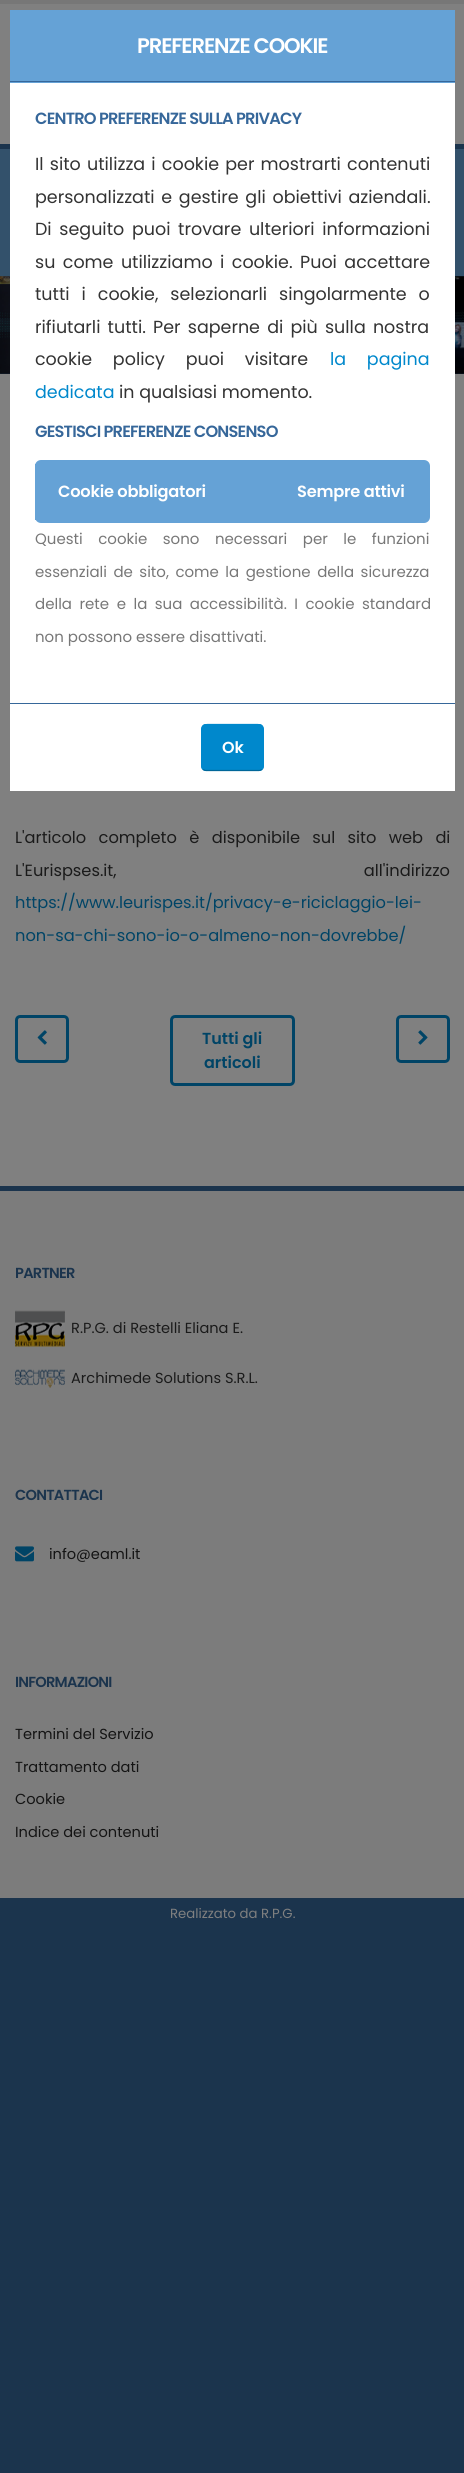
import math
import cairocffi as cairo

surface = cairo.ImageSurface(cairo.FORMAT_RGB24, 464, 2473)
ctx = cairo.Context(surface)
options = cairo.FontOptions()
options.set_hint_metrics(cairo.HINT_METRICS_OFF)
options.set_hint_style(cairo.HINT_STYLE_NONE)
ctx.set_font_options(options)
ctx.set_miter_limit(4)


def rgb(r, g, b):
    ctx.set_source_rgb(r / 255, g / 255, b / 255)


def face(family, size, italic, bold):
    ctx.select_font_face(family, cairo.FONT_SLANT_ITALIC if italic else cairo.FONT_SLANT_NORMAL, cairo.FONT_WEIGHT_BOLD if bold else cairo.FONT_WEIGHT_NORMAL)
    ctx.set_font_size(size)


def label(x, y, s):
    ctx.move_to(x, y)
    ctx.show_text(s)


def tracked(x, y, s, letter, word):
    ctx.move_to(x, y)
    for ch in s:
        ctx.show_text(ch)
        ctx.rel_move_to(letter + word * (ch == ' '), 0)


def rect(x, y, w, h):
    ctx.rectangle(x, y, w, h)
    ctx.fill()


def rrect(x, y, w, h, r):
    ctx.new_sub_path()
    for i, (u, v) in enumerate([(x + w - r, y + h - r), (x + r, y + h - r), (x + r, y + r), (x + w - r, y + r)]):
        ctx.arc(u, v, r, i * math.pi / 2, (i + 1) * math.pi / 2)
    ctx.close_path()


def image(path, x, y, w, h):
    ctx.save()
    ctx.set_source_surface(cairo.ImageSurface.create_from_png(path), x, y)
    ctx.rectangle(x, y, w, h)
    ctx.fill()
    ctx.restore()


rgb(27, 52, 77)
ctx.paint()
rgb(128, 128, 128)
rect(0, 4, 464, 140)
rgb(119, 119, 119)
rect(0, 0, 464, 4)
rgb(51, 81, 107)
rect(0, 149, 464, 127)
image('image0.png', 0, 276, 464, 98)
rgb(128, 128, 128)
rect(0, 374, 464, 812)
rgb(255, 255, 255)
rect(10, 83, 445, 708)
rgb(101, 162, 214)
rect(10, 10, 445, 73)
rgb(54, 103, 154)
rect(10, 81, 445, 1)
face('Poppins SemiBold', 21.1, 0, 0)
rgb(255, 255, 255)
tracked(137, 53, 'PREFERENZE COOKIE', -1.1, 0)
face('Poppins SemiBold', 16.25, 0, 0)
rgb(54, 103, 154)
tracked(35, 124, 'CENTRO PREFERENZE SULLA PRIVACY', -0.8, 0)
face('Poppins', 17.5, 0, 0)
rgb(51, 51, 51)
tracked(35, 170, 'Il sito utilizza i cookie per mostrarti contenuti', 0, 1.5)
tracked(35, 203, 'personalizzati e gestire gli obiettivi aziendali.', 0, 2)
tracked(35, 235, 'Di seguito puoi trovare ulteriori informazioni', 0, 3)
tracked(35, 268, 'su come utilizziamo i cookie. Puoi accettare', 0, 2.75)
tracked(35, 300, 'tutti i cookie, selezionarli singolarmente o', 0, 7.25)
tracked(35, 333, 'rifiutarli tutti. Per saperne di più sulla nostra', 0, 2.5)
tracked(35, 365, 'cookie policy puoi visitare', 0, 16)
rgb(0, 136, 204)
tracked(330, 365, 'la pagina', 0, 16)
label(35, 398, 'dedicata')
rgb(51, 51, 51)
label(119, 398, 'in qualsiasi momento.')
face('Poppins SemiBold', 16.25, 0, 0)
rgb(54, 103, 154)
tracked(35, 437, 'GESTISCI PREFERENZE CONSENSO', -0.8, 0)
rgb(101, 162, 214)
rrect(35, 460, 395, 63, 6)
ctx.fill()
rect(35, 464, 1, 56)
rgb(255, 255, 255)
tracked(58, 497, 'Cookie obbligatori', -0.25, 0)
tracked(297, 497, 'Sempre attivi', -0.25, 0)
face('Poppins', 15, 0, 0)
rgb(119, 119, 119)
tracked(35, 544, 'Questi cookie sono necessari per le funzioni', 0, 11.5)
tracked(35, 577, 'essenziali de sito, come la gestione della sicurezza', 0, 2.5)
tracked(35, 609, 'della rete e la sua accessibilità. I cookie standard', 0, 3.5)
label(35, 642, 'non possono essere disattivati.')
rgb(54, 103, 154)
rect(10, 703, 445, 1)
rgb(0, 136, 204)
rrect(201, 724, 63, 47, 5)
ctx.fill()
ctx.new_path()
ctx.move_to(262, 769.5)
ctx.curve_to(261, 770, 260, 770.5, 259, 770.5)
ctx.line_to(206, 770.5)
ctx.curve_to(205, 770.5, 204, 770, 203, 769.5)
rgb(0, 102, 153)
ctx.set_line_width(1.2)
ctx.stroke()
ctx.new_path()
ctx.move_to(203, 769.5)
ctx.curve_to(201, 767, 202, 762.5, 202, 760)
ctx.line_to(202, 735)
ctx.curve_to(202, 723, 202.5, 724.5, 215, 724.5)
ctx.line_to(250, 724.5)
ctx.curve_to(262.5, 724.5, 263, 723, 263, 735)
ctx.line_to(263, 760)
ctx.curve_to(263, 762.5, 264, 767, 262, 769.5)
rgb(0, 136, 204)
ctx.stroke()
face('Poppins SemiBold', 16, 0, 0)
rgb(255, 255, 255)
label(222, 753, 'Ok')
face('Poppins', 16.25, 0, 0)
rgb(26, 26, 26)
tracked(15, 843, 'L\'articolo completo è disponibile sul sito web di', 0, 8)
tracked(15, 876, 'L\'Eurispses.it, all\'indirizzo', 0, 243)
rgb(0, 68, 102)
label(15, 908, 'https://www.leurispes.it/privacy-e-riciclaggio-lei-')
label(15, 941, 'non-sa-chi-sono-io-o-almeno-non-dovrebbe/')
rrect(16.5, 1016.5, 51, 45, 3.5)
ctx.set_line_width(3)
ctx.stroke()
image('image1.png', 37, 1030, 10, 15)
rrect(171.5, 1016.5, 122, 68, 3.5)
ctx.stroke()
face('Poppins SemiBold', 16, 0, 0)
label(202, 1044, 'Tutti gli')
label(204, 1068, 'articoli')
rrect(397.5, 1016.5, 51, 45, 3.5)
ctx.stroke()
image('image2.png', 418, 1030, 10, 15)
rgb(124, 124, 124)
rect(0, 1191, 464, 707)
face('Poppins SemiBold', 14.6, 0, 0)
rgb(27, 52, 77)
tracked(15, 1278, 'PARTNER', -0.75, 0)
image('image3.png', 15, 1310, 50, 37)
face('Poppins', 14.6, 0, 0)
rgb(26, 26, 26)
label(71, 1333, 'R.P.G. di Restelli Eliana E.')
image('image4.png', 15, 1369, 50, 19)
label(71, 1383, 'Archimede Solutions S.R.L.')
face('Poppins SemiBold', 14.6, 0, 0)
rgb(27, 52, 77)
tracked(15, 1500, 'CONTATTACI', -0.75, 0)
image('image5.png', 15, 1546, 19, 16)
face('Poppins', 14.6, 0, 0)
rgb(20, 20, 20)
label(49, 1559, 'info@eaml.it')
face('Poppins SemiBold', 14.6, 0, 0)
rgb(27, 52, 77)
tracked(15, 1687, 'INFORMAZIONI', -0.75, 0)
face('Poppins', 14.6, 0, 0)
rgb(20, 20, 20)
label(15, 1739, 'Termini del Servizio')
label(15, 1772, 'Trattamento dati')
label(15, 1804, 'Cookie')
label(15, 1837, 'Indice dei contenuti')
face('Poppins', 13.25, 0, 0)
rgb(128, 128, 128)
label(170, 1918, 'Realizzato da R.P.G.')
surface.write_to_png('render.png')
